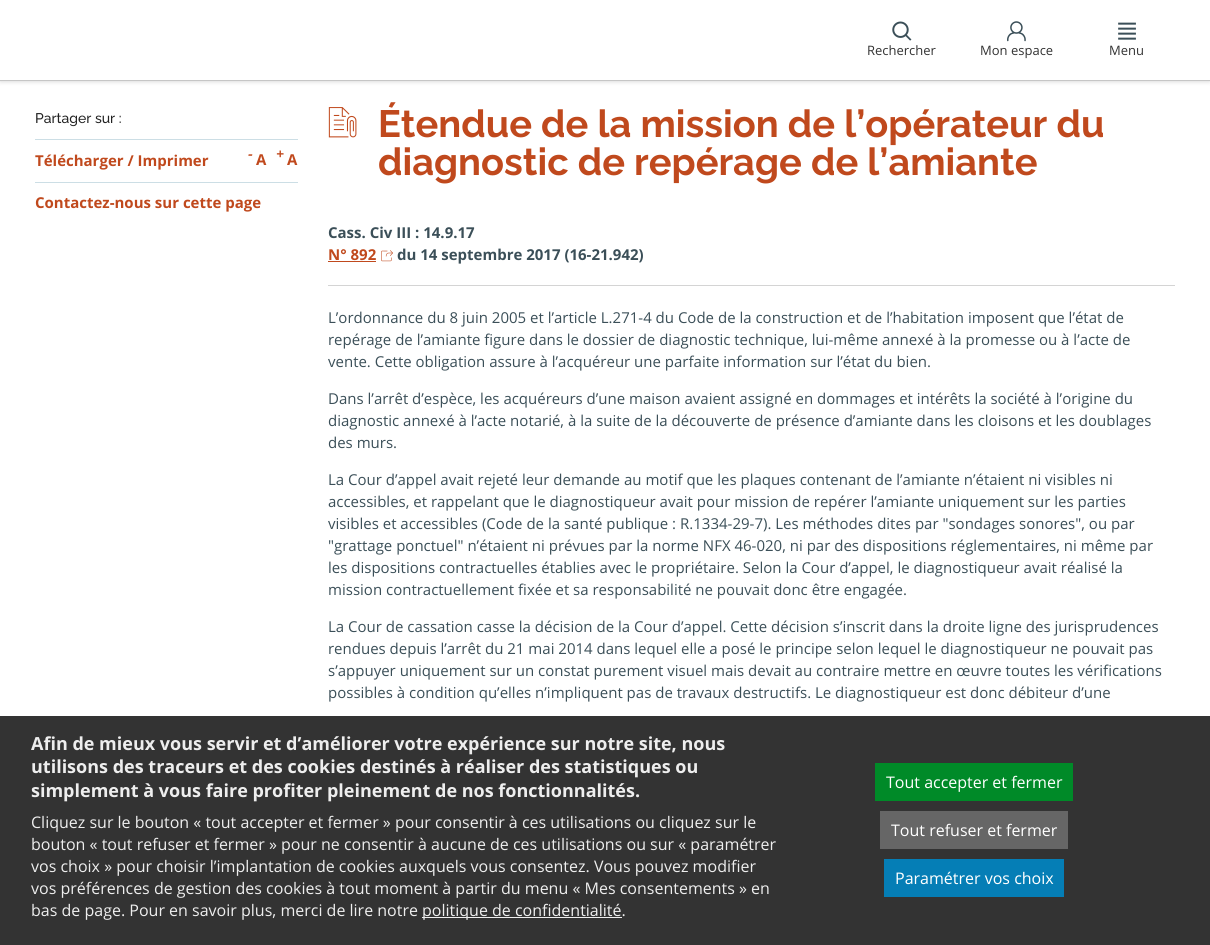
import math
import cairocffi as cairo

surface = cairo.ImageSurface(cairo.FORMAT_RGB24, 1210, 945)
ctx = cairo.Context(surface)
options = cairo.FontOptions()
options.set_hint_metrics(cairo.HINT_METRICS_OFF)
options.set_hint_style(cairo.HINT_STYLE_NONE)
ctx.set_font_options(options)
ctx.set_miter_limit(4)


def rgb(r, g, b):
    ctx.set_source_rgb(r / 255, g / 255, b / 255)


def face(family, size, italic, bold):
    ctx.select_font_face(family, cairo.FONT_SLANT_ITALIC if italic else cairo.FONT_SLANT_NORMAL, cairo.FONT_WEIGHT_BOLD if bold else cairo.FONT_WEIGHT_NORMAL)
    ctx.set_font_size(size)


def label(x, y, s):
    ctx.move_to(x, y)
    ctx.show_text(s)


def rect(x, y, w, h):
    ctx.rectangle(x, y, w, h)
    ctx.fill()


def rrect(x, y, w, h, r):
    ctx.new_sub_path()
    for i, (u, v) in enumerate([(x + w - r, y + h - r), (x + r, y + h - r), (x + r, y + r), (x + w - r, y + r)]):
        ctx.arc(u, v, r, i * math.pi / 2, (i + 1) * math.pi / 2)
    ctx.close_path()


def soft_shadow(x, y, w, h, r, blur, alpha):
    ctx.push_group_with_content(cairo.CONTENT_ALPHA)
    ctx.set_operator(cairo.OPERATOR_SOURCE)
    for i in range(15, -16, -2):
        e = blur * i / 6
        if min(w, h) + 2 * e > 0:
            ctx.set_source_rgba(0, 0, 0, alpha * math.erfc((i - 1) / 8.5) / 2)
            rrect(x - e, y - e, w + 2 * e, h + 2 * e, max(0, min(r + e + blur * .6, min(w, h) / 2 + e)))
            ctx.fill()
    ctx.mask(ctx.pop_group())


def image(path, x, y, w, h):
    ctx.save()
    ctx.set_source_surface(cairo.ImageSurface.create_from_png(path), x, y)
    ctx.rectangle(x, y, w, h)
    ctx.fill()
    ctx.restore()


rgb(255, 255, 255)
ctx.paint()
rgb(0, 0, 0)
soft_shadow(0, 0, 1210, 81, 0, 2.5, 0.2)
rgb(255, 255, 255)
rect(0, 0, 1210, 80)
rgb(198, 198, 198)
rect(0, 80, 1210, 1)
image('image0.png', 892, 21, 20, 20)
face('Open Sans', 13, 0, 0)
rgb(50, 50, 50)
label(867, 55, 'Rechercher')
image('image1.png', 1007, 21, 19, 21)
label(980, 55, 'Mon espace')
image('image2.png', 1118, 22, 18, 18)
label(1109, 55, 'Menu')
face('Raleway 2 Thin', 14, 0, 0)
rgb(34, 34, 34)
label(35, 123, 'Partager sur :')
rgb(204, 222, 229)
rect(35, 139, 263, 1)
face('Open Sans', 15, 0, 1)
rgb(192, 73, 29)
label(35, 166, 'Télécharger / Imprimer')
face('Open Sans', 14, 1, 1)
label(248, 159, '-')
face('Open Sans', 15, 0, 1)
label(256, 165, 'A')
face('Open Sans', 14, 1, 1)
label(276, 159, '+')
face('Open Sans', 15, 0, 1)
label(287, 165, 'A')
rgb(204, 222, 229)
rect(35, 182, 263, 1)
rgb(192, 73, 29)
label(35, 208, 'Contactez-nous sur cette page')
image('image3.png', 328, 107, 29, 31)
face('Raleway Thin', 38, 0, 0)
label(378, 137, 'Étendue de la mission de l’opérateur du')
label(378, 175, 'diagnostic de repérage de l’amiante')
face('Open Sans', 15, 0, 1)
rgb(59, 79, 88)
label(328, 238, 'Cass. Civ III : 14.9.17')
rgb(192, 73, 29)
label(328, 260, 'N° 892')
rect(328, 261, 48, 1)
image('image4.png', 381, 250, 12, 12)
rgb(59, 79, 88)
label(397, 260, 'du 14 septembre 2017 (16-21.942)')
rgb(212, 212, 212)
rect(328, 285, 847, 1)
face('Open Sans', 15, 0, 0)
rgb(59, 79, 88)
label(328, 323, 'L’ordonnance du 8 juin 2005 et l’article L.271-4 du Code de la construction et de l’habitation imposent que l’état de')
label(328, 345, 'repérage de l’amiante figure dans le dossier de diagnostic technique, lui-même annexé à la promesse ou à l’acte de')
label(328, 367, 'vente. Cette obligation assure à l’acquéreur une parfaite information sur l’état du bien.')
label(328, 404, 'Dans l’arrêt d’espèce, les acquéreurs d’une maison avaient assigné en dommages et intérêts la société à l’origine du')
label(328, 426, 'diagnostic annexé à l’acte notarié, à la suite de la découverte de présence d’amiante dans les cloisons et les doublages')
label(328, 448, 'des murs.')
label(328, 485, 'La Cour d’appel avait rejeté leur demande au motif que les plaques contenant de l’amiante n’étaient ni visibles ni')
label(328, 507, 'accessibles, et rappelant que le diagnostiqueur avait pour mission de repérer l’amiante uniquement sur les parties')
label(328, 529, 'visibles et accessibles (Code de la santé publique : R.1334-29-7). Les méthodes dites par "sondages sonores", ou par')
label(328, 551, '"grattage ponctuel" n’étaient ni prévues par la norme NFX 46-020, ni par des dispositions réglementaires, ni même par')
label(328, 573, 'les dispositions contractuelles établies avec le propriétaire. Selon la Cour d’appel, le diagnostiqueur avait réalisé la')
label(328, 595, 'mission contractuellement fixée et sa responsabilité ne pouvait donc être engagée.')
label(328, 632, 'La Cour de cassation casse la décision de la Cour d’appel. Cette décision s’inscrit dans la droite ligne des jurisprudences')
label(328, 654, 'rendues depuis l’arrêt du 21 mai 2014 dans lequel elle a posé le principe selon lequel le diagnostiqueur ne pouvait pas')
label(328, 676, 's’appuyer uniquement sur un constat purement visuel mais devait au contraire mettre en œuvre toutes les vérifications')
label(328, 698, 'possibles à condition qu’elles n’impliquent pas de travaux destructifs. Le diagnostiqueur est donc débiteur d’une')
rgb(51, 51, 51)
rect(0, 716, 1210, 229)
face('Open Sans', 18, 0, 1)
rgb(238, 238, 238)
label(31, 750, 'Afin de mieux vous servir et d’améliorer votre expérience sur notre site, nous')
label(31, 773, 'utilisons des traceurs et des cookies destinés à réaliser des statistiques ou')
label(31, 797, 'simplement à vous faire profiter pleinement de nos fonctionnalités.')
face('Open Sans', 16, 0, 0)
label(31, 828, 'Cliquez sur le bouton « tout accepter et fermer » pour consentir à ces utilisations ou cliquez sur le')
label(31, 850, 'bouton « tout refuser et fermer » pour ne consentir à aucune de ces utilisations ou sur « paramétrer')
label(31, 872, 'vos choix » pour choisir l’implantation de cookies auxquels vous consentez. Vous pouvez modifier')
label(31, 894, 'vos préférences de gestion des cookies à tout moment à partir du menu « Mes consentements » en')
label(31, 916, 'bas de page. Pour en savoir plus, merci de lire notre')
rect(422, 917, 200, 1)
label(422, 916, 'politique de confidentialité.')
rgb(0, 138, 40)
rect(875, 763, 198, 38)
rgb(255, 255, 255)
label(886, 788, 'Tout accepter et fermer')
rgb(102, 102, 102)
rect(880, 811, 188, 38)
rgb(255, 255, 255)
label(891, 836, 'Tout refuser et fermer')
rgb(5, 126, 182)
rect(884, 859, 180, 38)
rgb(255, 255, 255)
label(895, 884, 'Paramétrer vos choix')
surface.write_to_png('render.png')
